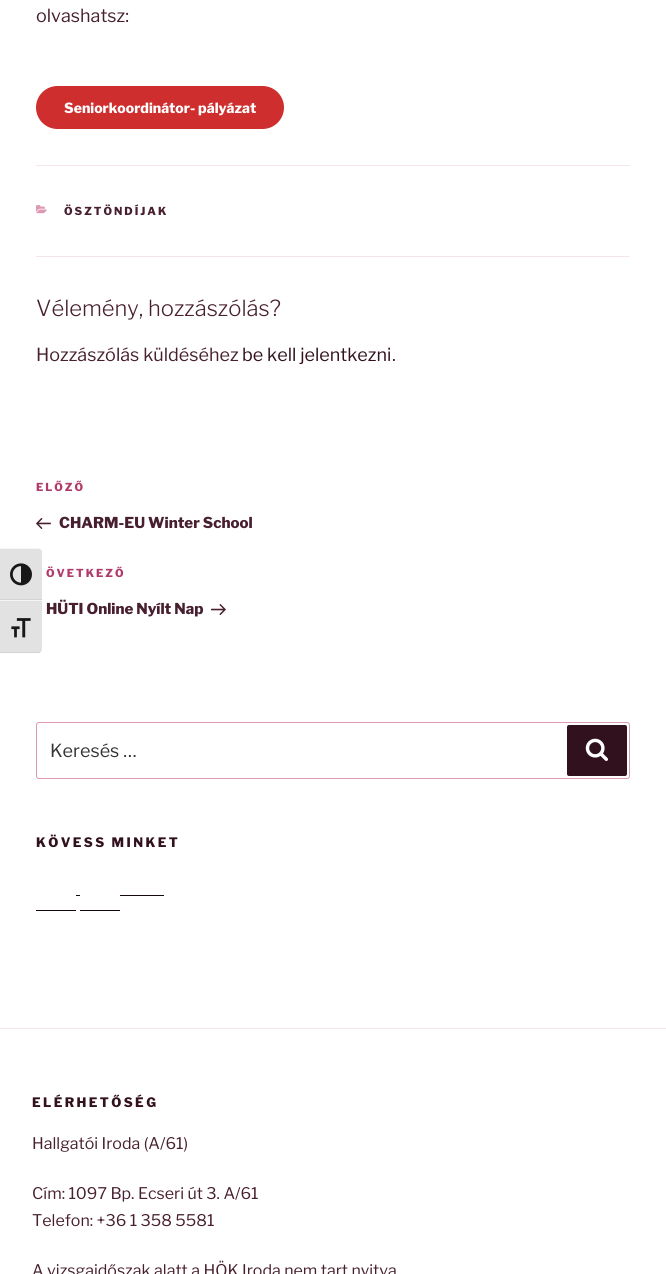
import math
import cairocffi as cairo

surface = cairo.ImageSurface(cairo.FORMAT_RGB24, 666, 1274)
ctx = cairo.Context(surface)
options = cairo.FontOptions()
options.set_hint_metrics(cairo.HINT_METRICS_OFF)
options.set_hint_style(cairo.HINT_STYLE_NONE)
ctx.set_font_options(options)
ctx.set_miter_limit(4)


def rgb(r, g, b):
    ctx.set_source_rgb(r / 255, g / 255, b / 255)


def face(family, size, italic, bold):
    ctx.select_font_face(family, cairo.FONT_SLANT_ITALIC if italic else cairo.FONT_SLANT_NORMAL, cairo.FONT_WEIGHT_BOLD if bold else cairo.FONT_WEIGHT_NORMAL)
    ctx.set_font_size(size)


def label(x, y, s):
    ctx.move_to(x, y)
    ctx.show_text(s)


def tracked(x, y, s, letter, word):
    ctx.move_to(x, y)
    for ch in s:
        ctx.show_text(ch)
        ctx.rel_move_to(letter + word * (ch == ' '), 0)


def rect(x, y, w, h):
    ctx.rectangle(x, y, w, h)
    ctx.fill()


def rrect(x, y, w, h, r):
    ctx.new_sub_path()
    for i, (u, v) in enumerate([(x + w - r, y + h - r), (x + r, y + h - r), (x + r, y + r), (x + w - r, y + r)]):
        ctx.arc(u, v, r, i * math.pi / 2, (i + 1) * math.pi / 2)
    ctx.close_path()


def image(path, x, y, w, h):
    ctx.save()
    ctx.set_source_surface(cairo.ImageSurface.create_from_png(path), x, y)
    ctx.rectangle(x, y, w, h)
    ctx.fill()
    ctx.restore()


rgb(255, 255, 255)
ctx.paint()
rgb(226, 226, 226)
ctx.new_path()
ctx.move_to(0, 548)
ctx.line_to(38, 548)
ctx.curve_to(40, 548, 42, 550, 42, 552)
ctx.line_to(42, 600)
ctx.line_to(0, 600)
ctx.close_path()
ctx.fill()
rgb(245, 245, 245)
ctx.new_path()
ctx.move_to(0, 548)
ctx.line_to(0, 549)
ctx.line_to(38, 549)
ctx.curve_to(40, 549, 42, 550, 42, 552)
ctx.curve_to(42, 550, 40, 548, 38, 548)
ctx.close_path()
ctx.fill()
rgb(210, 210, 210)
rect(0, 599, 42, 1)
image('image0.png', 10, 563, 22, 23)
rgb(226, 226, 226)
ctx.new_path()
ctx.move_to(0, 600)
ctx.line_to(42, 600)
ctx.line_to(42, 649)
ctx.curve_to(42, 651, 40, 653, 38, 653)
ctx.line_to(0, 653)
ctx.close_path()
ctx.fill()
rgb(245, 245, 245)
rect(0, 600, 42, 1)
rgb(210, 210, 210)
ctx.new_path()
ctx.move_to(0, 652)
ctx.line_to(0, 653)
ctx.line_to(38, 653)
ctx.curve_to(40, 653, 42, 651, 42, 649)
ctx.curve_to(42, 651, 40, 652, 38, 652)
ctx.close_path()
ctx.fill()
image('image1.png', 11, 618, 20, 20)
face('Libre Franklin Thin', 18, 0, 0)
rgb(71, 31, 47)
label(36, 22, 'olvashatsz:')
rgb(207, 46, 46)
rrect(36, 86, 248, 43, 21.5)
ctx.fill()
face('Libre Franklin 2 Thin', 14, 0, 0)
rgb(255, 255, 255)
label(64, 113, 'Seniorkoordinátor- pályázat')
rgb(246, 228, 235)
rect(36, 165, 594, 1)
rect(36, 256, 594, 1)
image('image2.png', 36, 205, 11, 9)
face('Libre Franklin 2 Thin', 11, 0, 0)
rgb(71, 31, 47)
tracked(64, 215, 'ÖSZTÖNDÍJAK', 2, 0)
face('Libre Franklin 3 Thin', 22, 0, 0)
label(36, 316, 'Vélemény, hozzászólás?')
face('Libre Franklin Thin', 18, 0, 0)
label(36, 361, 'Hozzászólás küldéséhez')
rgb(50, 17, 30)
label(242, 361, 'be kell jelentkezni')
rgb(71, 31, 47)
label(392, 361, '.')
face('Libre Franklin 2 Thin', 11, 0, 0)
rgb(176, 59, 106)
tracked(36, 491, 'ELŐZŐ', 2, 0)
image('image3.png', 36, 518, 15, 11)
face('Libre Franklin 2 Thin', 15, 0, 0)
rgb(71, 31, 47)
label(59, 528, 'CHARM-EU Winter School')
face('Libre Franklin 2 Thin', 11, 0, 0)
rgb(176, 59, 106)
tracked(46, 577, 'ÖVETKEZŐ', 2, 0)
face('Libre Franklin 2 Thin', 15, 0, 0)
rgb(71, 31, 47)
label(46, 614, 'HÜTI Online Nyílt Nap')
image('image4.png', 211, 604, 15, 12)
rrect(36.5, 722.5, 593, 56, 2.5)
rgb(221, 152, 179)
ctx.set_line_width(1)
ctx.stroke()
face('Libre Franklin Thin', 18, 0, 0)
rgb(51, 51, 51)
label(50, 757, 'Keresés …')
rgb(50, 17, 30)
rrect(567, 725, 60, 51, 2)
ctx.fill()
image('image5.png', 585, 738, 23, 23)
face('Libre Franklin 2 Thin', 13, 0, 0)
tracked(36, 847, 'KÖVESS MINKET', 2.4, 0)
rgb(23, 8, 14)
rect(76, 895, 4, 1)
rect(120, 895, 44, 1)
rect(36, 910, 40, 1)
rect(80, 910, 40, 1)
rgb(246, 228, 235)
rect(0, 1028, 666, 1)
rgb(50, 17, 30)
tracked(32, 1107, 'ELÉRHETŐSÉG', 2.4, 0)
face('Libre Franklin Thin', 16, 0, 0)
rgb(71, 31, 47)
label(32, 1149, 'Hallgatói Iroda (A/61)')
label(32, 1199, 'Cím: 1097 Bp. Ecseri út 3. A/61')
label(32, 1226, 'Telefon: +36 1 358 5581')
label(32, 1276, 'A vizsgaidőszak alatt a HÖK Iroda nem tart nyitva')
surface.write_to_png('render.png')
